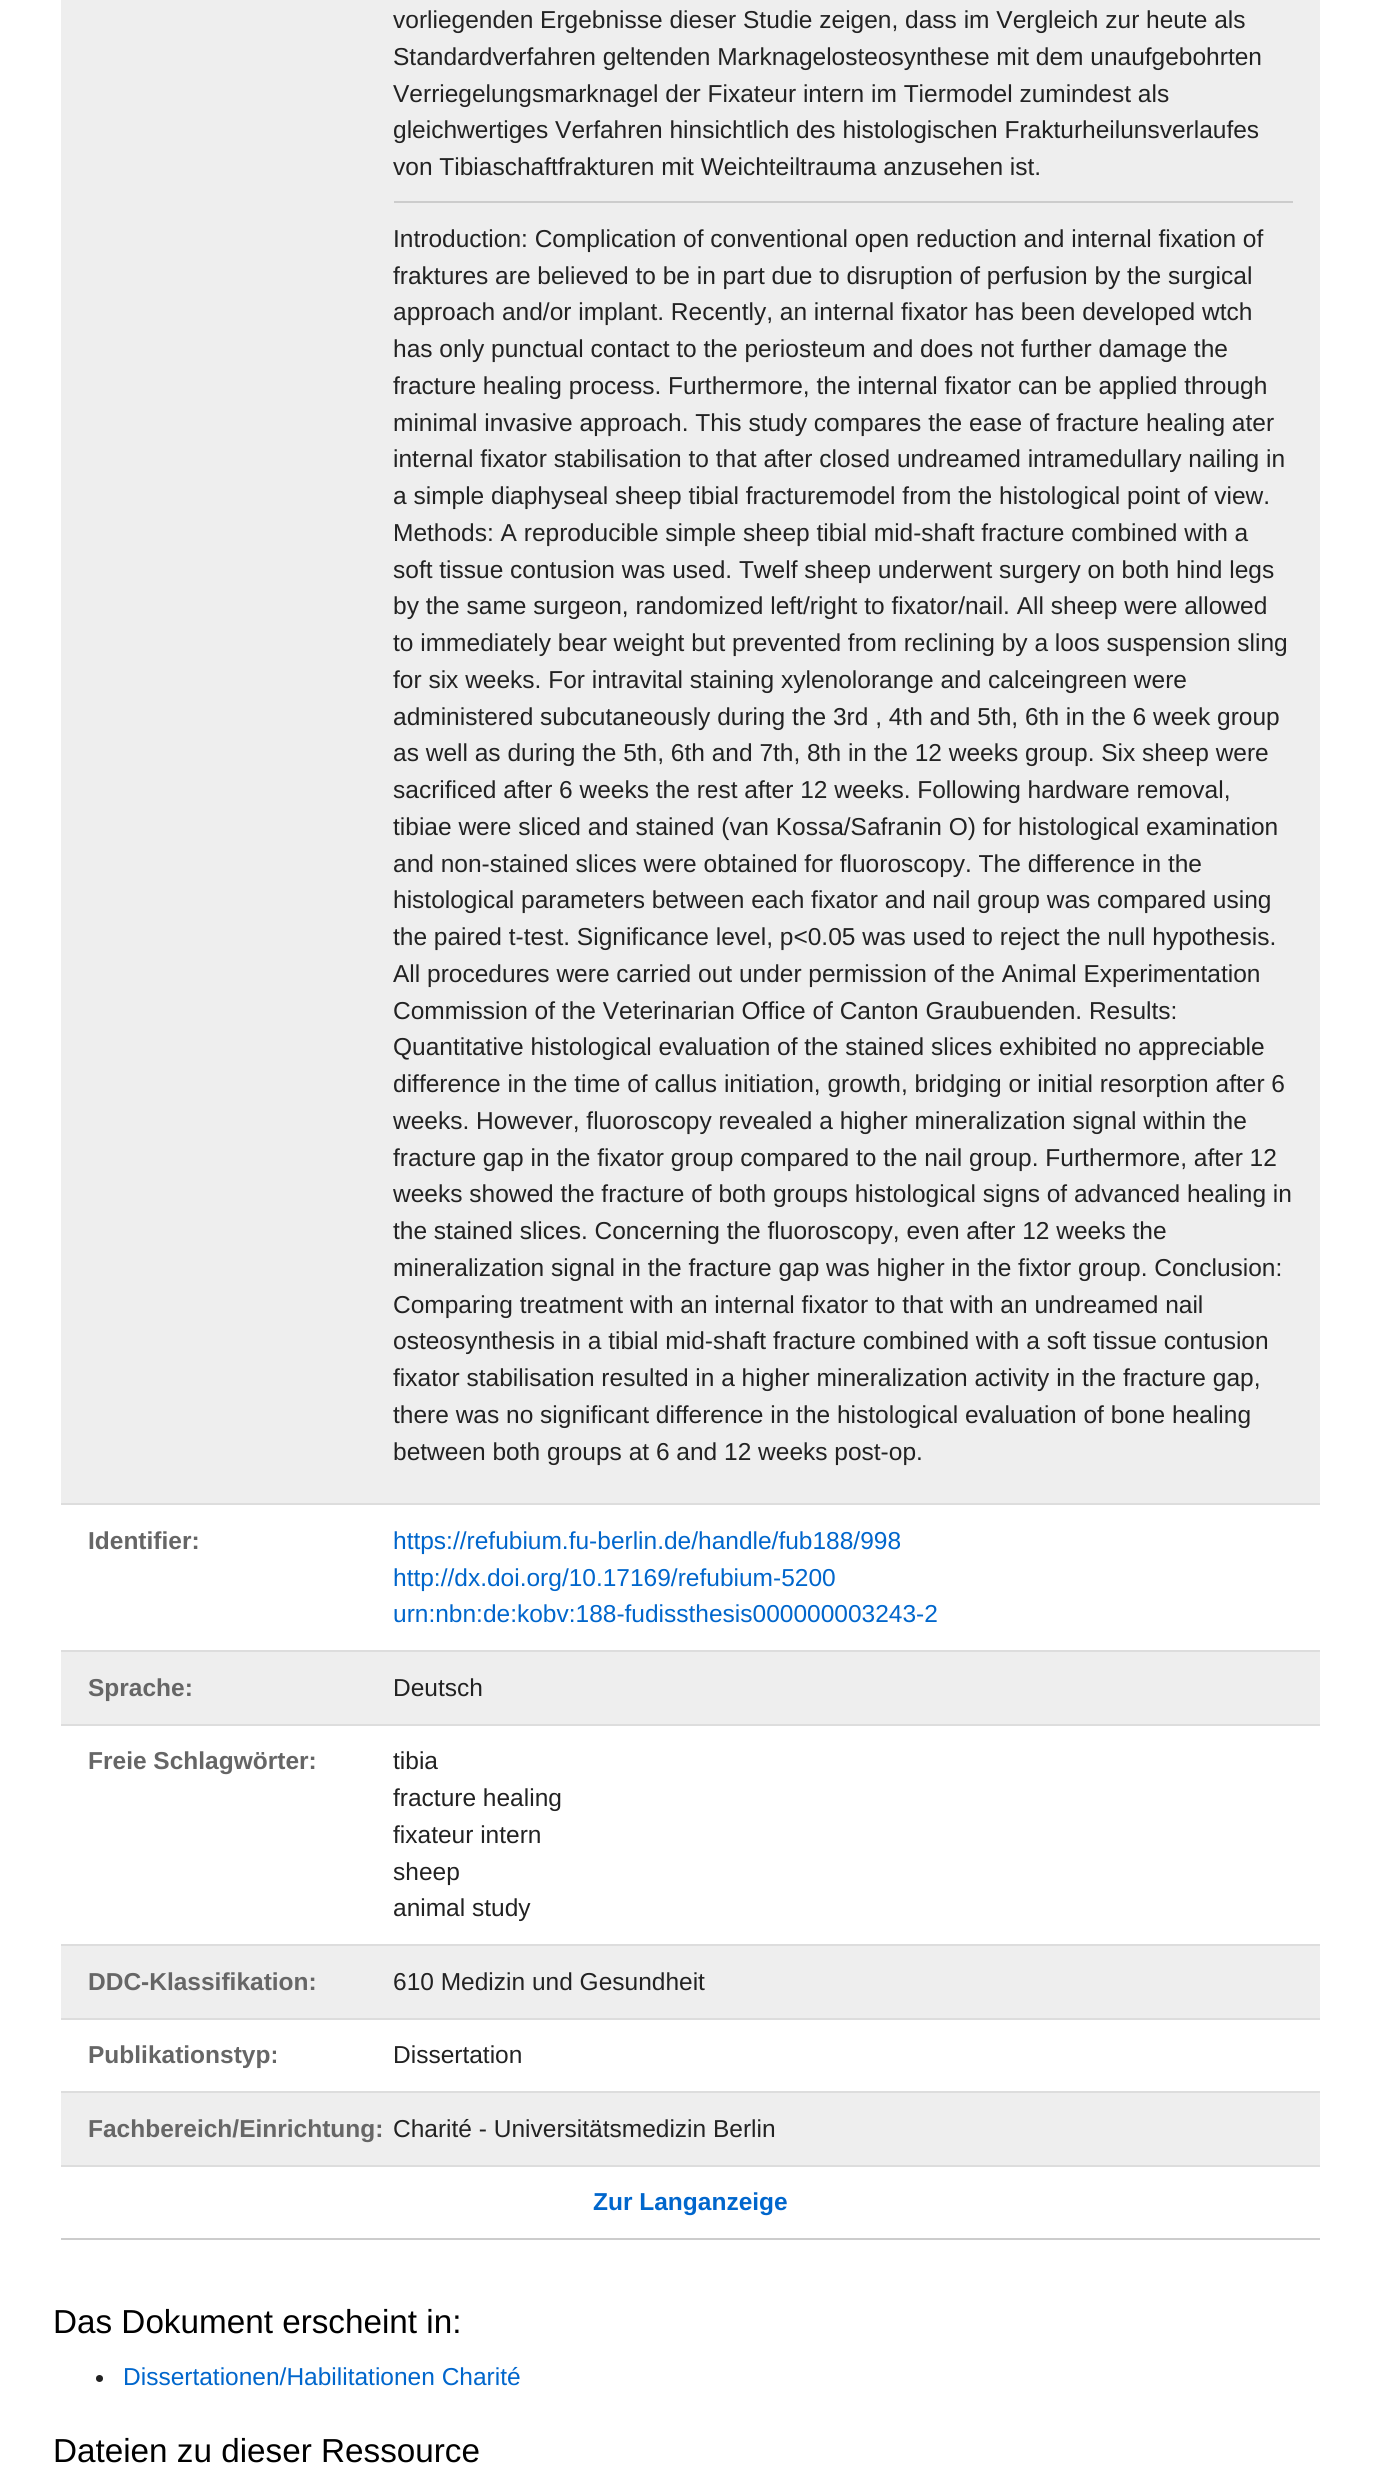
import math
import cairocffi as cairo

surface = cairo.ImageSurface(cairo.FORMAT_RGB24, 1380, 2469)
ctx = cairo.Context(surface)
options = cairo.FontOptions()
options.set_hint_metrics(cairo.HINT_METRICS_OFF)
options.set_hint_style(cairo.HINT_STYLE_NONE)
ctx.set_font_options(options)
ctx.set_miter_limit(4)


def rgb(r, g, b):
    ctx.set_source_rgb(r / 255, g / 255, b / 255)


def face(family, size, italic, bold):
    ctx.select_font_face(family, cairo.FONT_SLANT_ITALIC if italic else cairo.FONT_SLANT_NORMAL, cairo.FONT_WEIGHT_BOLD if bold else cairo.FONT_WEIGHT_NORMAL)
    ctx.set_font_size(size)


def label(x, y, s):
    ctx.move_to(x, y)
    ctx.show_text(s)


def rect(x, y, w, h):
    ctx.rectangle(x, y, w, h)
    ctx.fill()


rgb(255, 255, 255)
ctx.paint()
rgb(238, 238, 238)
rect(61, 0, 1259, 1503)
face('Liberation Sans', 24.5, 0, 0)
rgb(34, 34, 34)
label(393, 28, 'vorliegenden Ergebnisse dieser Studie zeigen, dass im Vergleich zur heute als')
label(393, 65, 'Standardverfahren geltenden Marknagelosteosynthese mit dem unaufgebohrten')
label(393, 102, 'Verriegelungsmarknagel der Fixateur intern im Tiermodel zumindest als')
label(393, 138, 'gleichwertiges Verfahren hinsichtlich des histologischen Frakturheilunsverlaufes')
label(393, 175, 'von Tibiaschaftfrakturen mit Weichteiltrauma anzusehen ist.')
rgb(204, 204, 204)
rect(394, 201, 899, 2)
rgb(34, 34, 34)
label(393, 247, 'Introduction: Complication of conventional open reduction and internal fixation of')
label(393, 284, 'fraktures are believed to be in part due to disruption of perfusion by the surgical')
label(393, 320, 'approach and/or implant. Recently, an internal fixator has been developed wtch')
label(393, 357, 'has only punctual contact to the periosteum and does not further damage the')
label(393, 394, 'fracture healing process. Furthermore, the internal fixator can be applied through')
label(393, 431, 'minimal invasive approach. This study compares the ease of fracture healing ater')
label(393, 467, 'internal fixator stabilisation to that after closed undreamed intramedullary nailing in')
label(393, 504, 'a simple diaphyseal sheep tibial fracturemodel from the histological point of view.')
label(393, 541, 'Methods: A reproducible simple sheep tibial mid-shaft fracture combined with a')
label(393, 578, 'soft tissue contusion was used. Twelf sheep underwent surgery on both hind legs')
label(393, 614, 'by the same surgeon, randomized left/right to fixator/nail. All sheep were allowed')
label(393, 651, 'to immediately bear weight but prevented from reclining by a loos suspension sling')
label(393, 688, 'for six weeks. For intravital staining xylenolorange and calceingreen were')
label(393, 725, 'administered subcutaneously during the 3rd , 4th and 5th, 6th in the 6 week group')
label(393, 761, 'as well as during the 5th, 6th and 7th, 8th in the 12 weeks group. Six sheep were')
label(393, 798, 'sacrificed after 6 weeks the rest after 12 weeks. Following hardware removal,')
label(393, 835, 'tibiae were sliced and stained (van Kossa/Safranin O) for histological examination')
label(393, 872, 'and non-stained slices were obtained for fluoroscopy. The difference in the')
label(393, 908, 'histological parameters between each fixator and nail group was compared using')
label(393, 945, 'the paired t-test. Significance level, p<0.05 was used to reject the null hypothesis.')
label(393, 982, 'All procedures were carried out under permission of the Animal Experimentation')
label(393, 1019, 'Commission of the Veterinarian Office of Canton Graubuenden. Results:')
label(393, 1055, 'Quantitative histological evaluation of the stained slices exhibited no appreciable')
label(393, 1092, 'difference in the time of callus initiation, growth, bridging or initial resorption after 6')
label(393, 1129, 'weeks. However, fluoroscopy revealed a higher mineralization signal within the')
label(393, 1166, 'fracture gap in the fixator group compared to the nail group. Furthermore, after 12')
label(393, 1202, 'weeks showed the fracture of both groups histological signs of advanced healing in')
label(393, 1239, 'the stained slices. Concerning the fluoroscopy, even after 12 weeks the')
label(393, 1276, 'mineralization signal in the fracture gap was higher in the fixtor group. Conclusion:')
label(393, 1313, 'Comparing treatment with an internal fixator to that with an undreamed nail')
label(393, 1349, 'osteosynthesis in a tibial mid-shaft fracture combined with a soft tissue contusion')
label(393, 1386, 'fixator stabilisation resulted in a higher mineralization activity in the fracture gap,')
label(393, 1423, 'there was no significant difference in the histological evaluation of bone healing')
label(393, 1460, 'between both groups at 6 and 12 weeks post-op.')
rgb(221, 221, 221)
rect(61, 1503, 1259, 2)
face('Liberation Sans', 24.5, 0, 1)
rgb(102, 102, 102)
label(88, 1549, 'Identifier:')
face('Liberation Sans', 24.5, 0, 0)
rgb(0, 102, 204)
label(393, 1549, 'https://refubium.fu-berlin.de/handle/fub188/998')
label(393, 1586, 'http://dx.doi.org/10.17169/refubium-5200')
label(393, 1622, 'urn:nbn:de:kobv:188-fudissthesis000000003243-2')
rgb(238, 238, 238)
rect(61, 1652, 1259, 72)
rgb(221, 221, 221)
rect(61, 1650, 1259, 2)
face('Liberation Sans', 24.5, 0, 1)
rgb(102, 102, 102)
label(88, 1696, 'Sprache:')
face('Liberation Sans', 24.5, 0, 0)
rgb(34, 34, 34)
label(393, 1696, 'Deutsch')
rgb(221, 221, 221)
rect(61, 1724, 1259, 2)
face('Liberation Sans', 24.5, 0, 1)
rgb(102, 102, 102)
label(88, 1769, 'Freie Schlagwörter:')
face('Liberation Sans', 24.5, 0, 0)
rgb(34, 34, 34)
label(393, 1769, 'tibia')
label(393, 1806, 'fracture healing')
label(393, 1843, 'fixateur intern')
label(393, 1880, 'sheep')
label(393, 1916, 'animal study')
rgb(238, 238, 238)
rect(61, 1946, 1259, 72)
rgb(221, 221, 221)
rect(61, 1944, 1259, 2)
face('Liberation Sans', 24.5, 0, 1)
rgb(102, 102, 102)
label(88, 1990, 'DDC-Klassifikation:')
face('Liberation Sans', 24.5, 0, 0)
rgb(34, 34, 34)
label(393, 1990, '610 Medizin und Gesundheit')
rgb(221, 221, 221)
rect(61, 2018, 1259, 2)
face('Liberation Sans', 24.5, 0, 1)
rgb(102, 102, 102)
label(88, 2063, 'Publikationstyp:')
face('Liberation Sans', 24.5, 0, 0)
rgb(34, 34, 34)
label(393, 2063, 'Dissertation')
rgb(238, 238, 238)
rect(61, 2093, 1259, 72)
rgb(221, 221, 221)
rect(61, 2091, 1259, 2)
face('Liberation Sans', 24.5, 0, 1)
rgb(102, 102, 102)
label(88, 2137, 'Fachbereich/Einrichtung:')
face('Liberation Sans', 24.5, 0, 0)
rgb(34, 34, 34)
label(393, 2137, 'Charité - Universitätsmedizin Berlin')
rgb(221, 221, 221)
rect(61, 2165, 1259, 2)
rgb(204, 204, 204)
rect(61, 2238, 1259, 2)
face('Liberation Sans', 24.5, 0, 1)
rgb(0, 102, 204)
label(593, 2210, 'Zur Langanzeige')
face('Liberation Sans', 33.25, 0, 0)
rgb(0, 0, 0)
label(53, 2333, 'Das Dokument erscheint in:')
rgb(34, 34, 34)
ctx.new_path()
ctx.arc(99.5, 2378.5, 3.5, 0, 2 * math.pi)
ctx.fill()
face('Liberation Sans', 24.5, 0, 0)
rgb(0, 102, 204)
label(123, 2385, 'Dissertationen/Habilitationen Charité')
face('Liberation Sans', 33.25, 0, 0)
rgb(0, 0, 0)
label(53, 2462, 'Dateien zu dieser Ressource')
surface.write_to_png('render.png')
